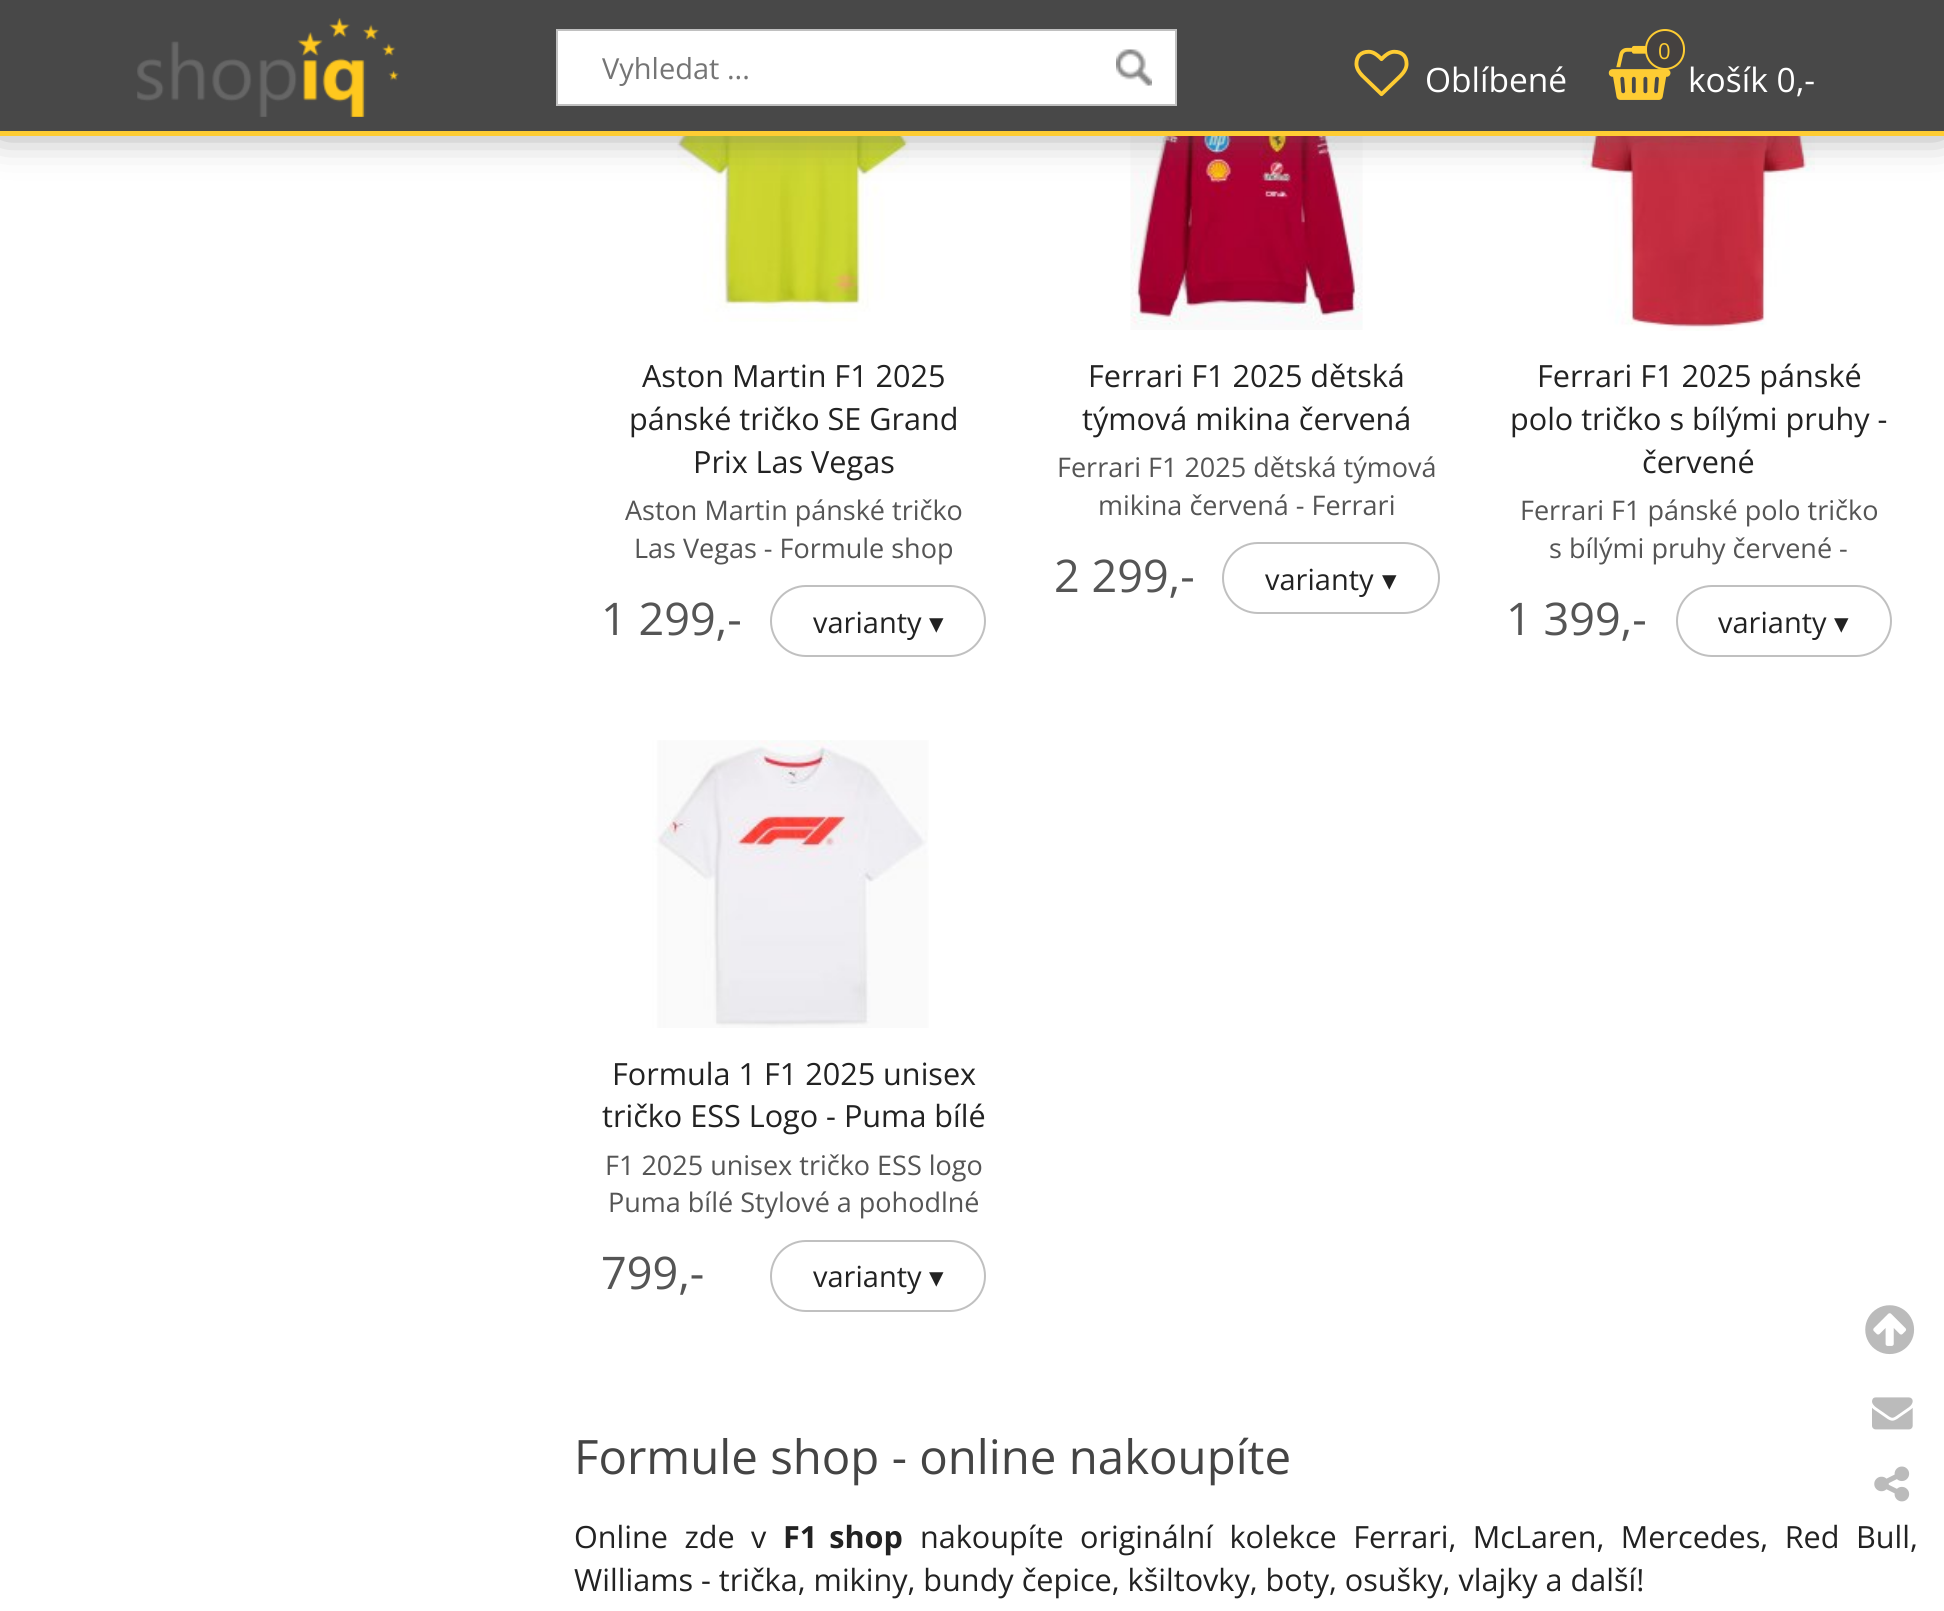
import math
import cairocffi as cairo

surface = cairo.ImageSurface(cairo.FORMAT_RGB24, 1944, 1611)
ctx = cairo.Context(surface)
options = cairo.FontOptions()
options.set_hint_metrics(cairo.HINT_METRICS_OFF)
options.set_hint_style(cairo.HINT_STYLE_NONE)
ctx.set_font_options(options)
ctx.set_miter_limit(4)


def rgb(r, g, b):
    ctx.set_source_rgb(r / 255, g / 255, b / 255)


def face(family, size, italic, bold):
    ctx.select_font_face(family, cairo.FONT_SLANT_ITALIC if italic else cairo.FONT_SLANT_NORMAL, cairo.FONT_WEIGHT_BOLD if bold else cairo.FONT_WEIGHT_NORMAL)
    ctx.set_font_size(size)


def label(x, y, s):
    ctx.move_to(x, y)
    ctx.show_text(s)


def tracked(x, y, s, letter, word):
    ctx.move_to(x, y)
    for ch in s:
        ctx.show_text(ch)
        ctx.rel_move_to(letter + word * (ch == ' '), 0)


def rect(x, y, w, h):
    ctx.rectangle(x, y, w, h)
    ctx.fill()


def rrect(x, y, w, h, r):
    ctx.new_sub_path()
    for i, (u, v) in enumerate([(x + w - r, y + h - r), (x + r, y + h - r), (x + r, y + r), (x + w - r, y + r)]):
        ctx.arc(u, v, r, i * math.pi / 2, (i + 1) * math.pi / 2)
    ctx.close_path()


def soft_shadow(x, y, w, h, r, blur, alpha):
    ctx.push_group_with_content(cairo.CONTENT_ALPHA)
    ctx.set_operator(cairo.OPERATOR_SOURCE)
    for i in range(15, -16, -2):
        e = blur * i / 6
        if min(w, h) + 2 * e > 0:
            ctx.set_source_rgba(0, 0, 0, alpha * math.erfc((i - 1) / 8.5) / 2)
            rrect(x - e, y - e, w + 2 * e, h + 2 * e, max(0, min(r + e + blur * .6, min(w, h) / 2 + e)))
            ctx.fill()
    ctx.mask(ctx.pop_group())


def image(path, x, y, w, h):
    ctx.save()
    ctx.set_source_surface(cairo.ImageSurface.create_from_png(path), x, y)
    ctx.rectangle(x, y, w, h)
    ctx.fill()
    ctx.restore()


rgb(255, 255, 255)
ctx.paint()
image('image4.png', 677, 136, 233, 186)
image('image5.png', 1130, 136, 233, 194)
image('image6.png', 1581, 136, 234, 195)
rgb(102, 102, 102)
soft_shadow(0, -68, 1944, 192, 0, 22.5, 1)
rgb(72, 72, 72)
rect(0, 0, 1944, 131)
rgb(254, 204, 51)
rect(0, 131, 1944, 5)
image('image0.png', 137, 18, 262, 99)
rgb(255, 255, 255)
rect(558, 31, 617, 73)
image('image1.png', 1116, 49, 36, 37)
ctx.rectangle(557, 30, 619, 75)
rgb(192, 192, 192)
ctx.stroke()
face('Open Sans', 29, 0, 0)
rgb(117, 117, 117)
label(602, 79, 'Vyhledat ...')
image('image2.png', 1354, 49, 55, 48)
face('Open Sans', 33.5, 0, 0)
rgb(255, 255, 255)
label(1425, 92, 'Oblíbené')
image('image3.png', 1608, 45, 63, 55)
rgb(69, 65, 64)
rrect(1646, 30, 38, 39, 19)
ctx.fill_preserve()
rgb(254, 204, 51)
ctx.stroke()
face('Open Sans', 22, 0, 0)
label(1658, 59, '0')
face('Open Sans', 33.5, 0, 0)
rgb(255, 255, 255)
label(1688, 92, 'košík 0,-')
face('Open Sans', 30.6, 0, 0)
rgb(34, 34, 34)
label(642, 387, 'Aston Martin F1 2025')
label(629, 430, 'pánské tričko SE Grand')
label(693, 473, 'Prix Las Vegas')
face('Open Sans', 27, 0, 0)
rgb(85, 85, 85)
label(625, 520, 'Aston Martin pánské tričko')
label(634, 558, 'Las Vegas - Formule shop')
face('Open Sans', 45, 0, 0)
label(601, 635, '1 299,-')
rrect(771, 586, 214, 70, 35)
rgb(192, 192, 192)
ctx.stroke()
face('Open Sans', 29, 0, 0)
rgb(34, 34, 34)
label(813, 633, 'varianty')
face('DejaVu Sans', 29, 0, 0)
label(929, 633, '▾')
face('Open Sans', 30.6, 0, 0)
label(1088, 387, 'Ferrari F1 2025 dětská')
label(1082, 430, 'týmová mikina červená')
face('Open Sans', 27, 0, 0)
rgb(85, 85, 85)
label(1057, 477, 'Ferrari F1 2025 dětská týmová')
label(1098, 515, 'mikina červená - Ferrari')
face('Open Sans', 45, 0, 0)
label(1054, 592, '2 299,-')
rrect(1223, 543, 216, 70, 35)
rgb(192, 192, 192)
ctx.stroke()
face('Open Sans', 29, 0, 0)
rgb(34, 34, 34)
label(1265, 590, 'varianty')
face('DejaVu Sans', 29, 0, 0)
label(1382, 590, '▾')
face('Open Sans', 30.6, 0, 0)
label(1537, 387, 'Ferrari F1 2025 pánské')
label(1510, 430, 'polo tričko s bílými pruhy -')
label(1642, 473, 'červené')
face('Open Sans', 27, 0, 0)
rgb(85, 85, 85)
label(1520, 520, 'Ferrari F1 pánské polo tričko')
label(1549, 558, 's bílými pruhy červené -')
face('Open Sans', 45, 0, 0)
label(1506, 635, '1 399,-')
rrect(1677, 586, 214, 70, 35)
rgb(192, 192, 192)
ctx.stroke()
face('Open Sans', 29, 0, 0)
rgb(34, 34, 34)
label(1718, 633, 'varianty')
face('DejaVu Sans', 29, 0, 0)
label(1834, 633, '▾')
image('image7.png', 652, 740, 277, 288)
face('Open Sans', 30.6, 0, 0)
label(612, 1085, 'Formula 1 F1 2025 unisex')
label(602, 1127, 'tričko ESS Logo - Puma bílé')
face('Open Sans', 27, 0, 0)
rgb(85, 85, 85)
label(605, 1175, 'F1 2025 unisex tričko ESS logo')
label(608, 1212, 'Puma bílé Stylové a pohodlné')
face('Open Sans', 45, 0, 0)
label(601, 1289, '799,-')
rrect(771, 1241, 214, 70, 35)
rgb(192, 192, 192)
ctx.stroke()
face('Open Sans', 29, 0, 0)
rgb(34, 34, 34)
label(813, 1287, 'varianty')
face('DejaVu Sans', 29, 0, 0)
label(929, 1287, '▾')
face('Open Sans', 47.4, 0, 0)
rgb(68, 68, 68)
label(574, 1474, 'Formule shop - online nakoupíte')
face('Open Sans', 30.6, 0, 0)
rgb(34, 34, 34)
tracked(574, 1548, 'Online zde v', 0, 8.5)
face('Open Sans', 30.6, 0, 1)
tracked(783, 1548, 'F1 shop', 0, 4)
face('Open Sans', 30.6, 0, 0)
tracked(920, 1548, 'nakoupíte originální kolekce Ferrari, McLaren, Mercedes, Red Bull,', 0, 8.5)
label(574, 1591, 'Williams - trička, mikiny, bundy čepice, kšiltovky, boty, osušky, vlajky a další!')
image('image8.png', 1865, 1305, 50, 50)
image('image9.png', 1872, 1397, 41, 33)
image('image10.png', 1874, 1466, 36, 36)
surface.write_to_png('render.png')
